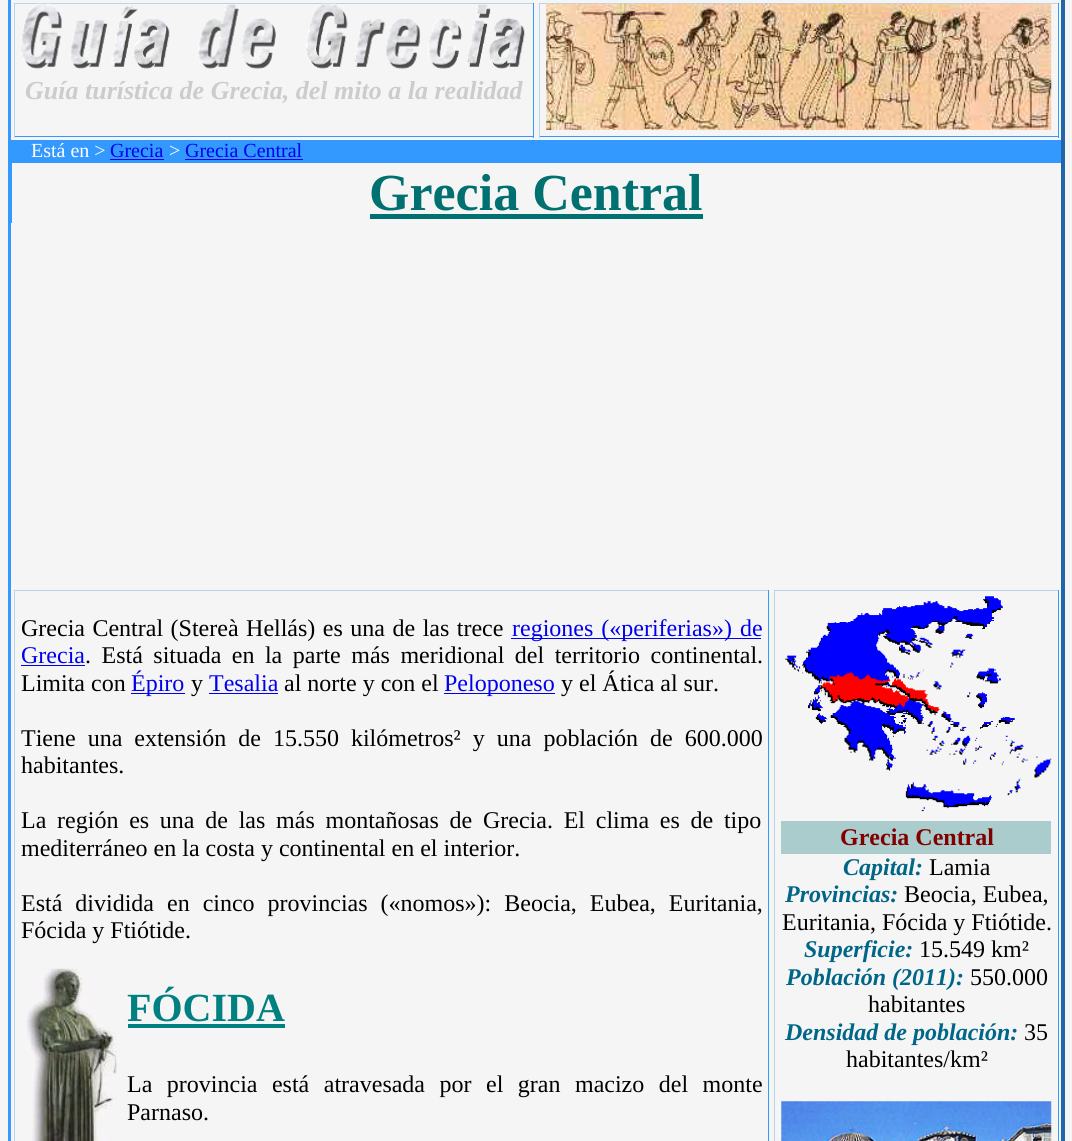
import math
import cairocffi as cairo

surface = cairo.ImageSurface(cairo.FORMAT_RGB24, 1072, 1141)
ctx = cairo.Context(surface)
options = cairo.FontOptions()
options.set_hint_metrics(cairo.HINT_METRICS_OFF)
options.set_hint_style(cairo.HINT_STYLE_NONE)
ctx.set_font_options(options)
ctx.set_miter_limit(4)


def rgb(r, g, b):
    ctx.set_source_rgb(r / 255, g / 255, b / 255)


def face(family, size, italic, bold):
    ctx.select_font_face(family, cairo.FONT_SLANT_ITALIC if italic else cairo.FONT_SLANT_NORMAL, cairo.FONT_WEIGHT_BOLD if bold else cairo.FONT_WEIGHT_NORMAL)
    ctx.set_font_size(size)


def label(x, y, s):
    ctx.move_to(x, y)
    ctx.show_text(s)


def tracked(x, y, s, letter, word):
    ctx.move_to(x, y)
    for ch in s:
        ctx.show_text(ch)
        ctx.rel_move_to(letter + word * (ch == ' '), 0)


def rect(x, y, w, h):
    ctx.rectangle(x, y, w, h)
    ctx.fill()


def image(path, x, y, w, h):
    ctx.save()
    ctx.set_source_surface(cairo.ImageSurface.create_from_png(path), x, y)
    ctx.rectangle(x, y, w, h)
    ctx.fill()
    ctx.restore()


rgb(245, 245, 245)
ctx.paint()
rgb(34, 102, 170)
rect(1061, 0, 4, 1141)
rgb(51, 153, 255)
rect(8, 0, 4, 1141)
rgb(245, 245, 245)
rect(11, 0, 1, 140)
rgb(188, 210, 230)
rect(14, 3, 520, 1)
rgb(51, 153, 255)
rect(533, 3, 1, 135)
rect(14, 136, 520, 1)
rgb(188, 210, 230)
rect(14, 3, 1, 135)
image('image0.png', 21, 3, 504, 66)
face('Liberation Serif', 26, 1, 1)
rgb(204, 204, 204)
label(25, 99, 'Guía turística de Grecia, del mito a la realidad')
rgb(188, 210, 230)
rect(539, 3, 520, 1)
rgb(51, 153, 255)
rect(1058, 3, 1, 135)
rect(539, 136, 520, 1)
rgb(188, 210, 230)
rect(539, 3, 1, 135)
image('image1.png', 546, 3, 506, 127)
rgb(51, 153, 255)
rect(12, 140, 1049, 23)
face('Liberation Serif', 20, 0, 0)
rgb(255, 255, 255)
label(31, 157, 'Está en >')
rgb(0, 0, 238)
label(110, 157, 'Grecia')
rect(110, 159, 54, 1)
rgb(255, 255, 255)
label(169, 157, '>')
rgb(0, 0, 238)
label(185, 157, 'Grecia Central')
rect(185, 159, 118, 1)
face('Liberation Serif', 52, 0, 1)
rgb(0, 112, 112)
label(369, 210, 'Grecia Central')
rect(370, 214, 333, 5)
rgb(245, 245, 245)
rect(11, 223, 1, 918)
rgb(188, 210, 230)
rect(14, 590, 755, 1)
rgb(51, 153, 255)
rect(768, 590, 1, 551)
rgb(188, 210, 230)
rect(14, 590, 1, 551)
face('Liberation Serif', 24, 0, 0)
rgb(0, 0, 0)
tracked(21, 636, 'Grecia Central (Stereà Hellás) es una de las trece', 0, 1.5)
rgb(0, 0, 238)
rect(511, 638, 250, 1)
tracked(512, 636, 'regiones («periferias») de', 0, 2)
label(21, 663, 'Grecia')
rect(21, 665, 64, 1)
rgb(0, 0, 0)
tracked(85, 663, '. Está situada en la parte más meridional del territorio continental.', 0, 4.5)
label(21, 691, 'Limita con')
rgb(0, 0, 238)
rect(131, 693, 54, 1)
label(131, 691, 'Épiro')
rgb(0, 0, 0)
label(191, 691, 'y')
rgb(0, 0, 238)
label(209, 691, 'Tesalia')
rect(209, 693, 69, 1)
rgb(0, 0, 0)
label(284, 691, 'al norte y con el')
rgb(0, 0, 238)
rect(444, 693, 111, 1)
label(444, 691, 'Peloponeso')
rgb(0, 0, 0)
label(561, 691, 'y el Ática al sur.')
tracked(21, 746, 'Tiene una extensión de 15.550 kilómetros² y una población de 600.000', 0, 6)
label(21, 773, 'habitantes.')
tracked(21, 828, 'La región es una de las más montañosas de Grecia. El clima es de tipo', 0, 4.75)
label(21, 856, 'mediterráneo en la costa y continental en el interior.')
tracked(21, 911, 'Está dividida en cinco provincias («nomos»): Beocia, Eubea, Euritania,', 0, 7)
label(21, 938, 'Fócida y Ftiótide.')
image('image2.png', 26, 968, 96, 173)
face('Liberation Serif', 40, 0, 1)
rgb(0, 128, 128)
label(127, 1021, 'FÓCIDA')
rect(128, 1024, 157, 4)
face('Liberation Serif', 24, 0, 0)
rgb(0, 0, 0)
tracked(127, 1092, 'La provincia está atravesada por el gran macizo del monte', 0, 8.5)
label(127, 1120, 'Parnaso.')
rgb(188, 210, 230)
rect(774, 590, 285, 1)
rgb(51, 153, 255)
rect(1058, 590, 1, 551)
rgb(188, 210, 230)
rect(774, 590, 1, 551)
image('image3.png', 785, 596, 267, 216)
rgb(170, 204, 204)
rect(781, 821, 270, 33)
face('Liberation Serif', 24, 0, 1)
rgb(128, 0, 0)
label(840, 845, 'Grecia Central')
face('Liberation Serif', 24, 1, 1)
rgb(0, 102, 136)
label(843, 875, 'Capital:')
face('Liberation Serif', 24, 0, 0)
rgb(0, 0, 0)
label(929, 875, 'Lamia')
face('Liberation Serif', 24, 1, 1)
rgb(0, 102, 136)
label(785, 902, 'Provincias:')
face('Liberation Serif', 24, 0, 0)
rgb(0, 0, 0)
label(904, 902, 'Beocia, Eubea,')
label(782, 930, 'Euritania, Fócida y Ftiótide.')
face('Liberation Serif', 24, 1, 1)
rgb(0, 102, 136)
label(804, 957, 'Superficie:')
face('Liberation Serif', 24, 0, 0)
rgb(0, 0, 0)
label(919, 957, '15.549 km²')
face('Liberation Serif', 24, 1, 1)
rgb(0, 102, 136)
label(786, 985, 'Población (2011):')
face('Liberation Serif', 24, 0, 0)
rgb(0, 0, 0)
label(970, 985, '550.000')
label(868, 1012, 'habitantes')
face('Liberation Serif', 24, 1, 1)
rgb(0, 102, 136)
label(785, 1040, 'Densidad de población:')
face('Liberation Serif', 24, 0, 0)
rgb(0, 0, 0)
label(1024, 1040, '35')
label(846, 1067, 'habitantes/km²')
image('image4.png', 781, 1101, 271, 40)
surface.write_to_png('render.png')
